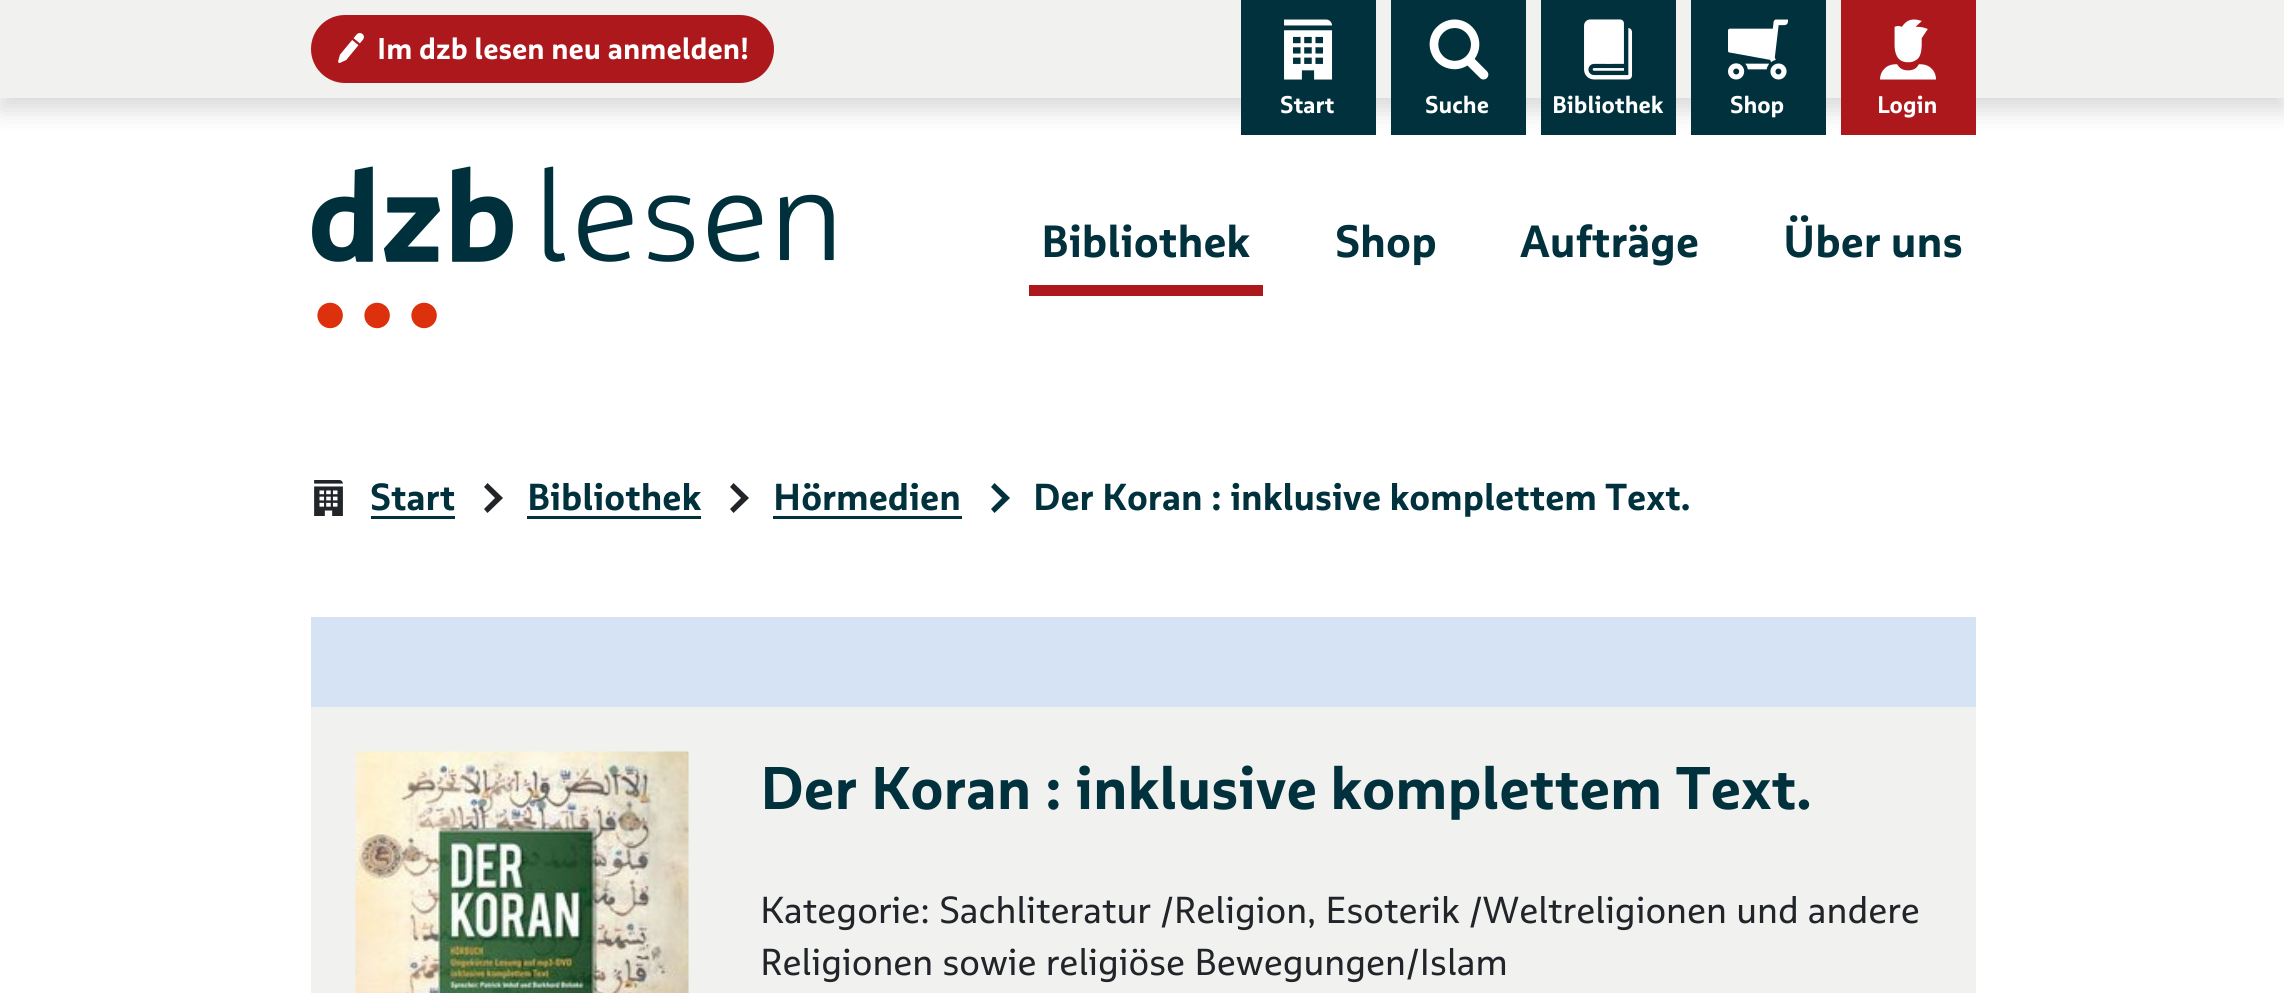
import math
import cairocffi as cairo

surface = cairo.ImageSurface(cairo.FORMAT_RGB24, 2284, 993)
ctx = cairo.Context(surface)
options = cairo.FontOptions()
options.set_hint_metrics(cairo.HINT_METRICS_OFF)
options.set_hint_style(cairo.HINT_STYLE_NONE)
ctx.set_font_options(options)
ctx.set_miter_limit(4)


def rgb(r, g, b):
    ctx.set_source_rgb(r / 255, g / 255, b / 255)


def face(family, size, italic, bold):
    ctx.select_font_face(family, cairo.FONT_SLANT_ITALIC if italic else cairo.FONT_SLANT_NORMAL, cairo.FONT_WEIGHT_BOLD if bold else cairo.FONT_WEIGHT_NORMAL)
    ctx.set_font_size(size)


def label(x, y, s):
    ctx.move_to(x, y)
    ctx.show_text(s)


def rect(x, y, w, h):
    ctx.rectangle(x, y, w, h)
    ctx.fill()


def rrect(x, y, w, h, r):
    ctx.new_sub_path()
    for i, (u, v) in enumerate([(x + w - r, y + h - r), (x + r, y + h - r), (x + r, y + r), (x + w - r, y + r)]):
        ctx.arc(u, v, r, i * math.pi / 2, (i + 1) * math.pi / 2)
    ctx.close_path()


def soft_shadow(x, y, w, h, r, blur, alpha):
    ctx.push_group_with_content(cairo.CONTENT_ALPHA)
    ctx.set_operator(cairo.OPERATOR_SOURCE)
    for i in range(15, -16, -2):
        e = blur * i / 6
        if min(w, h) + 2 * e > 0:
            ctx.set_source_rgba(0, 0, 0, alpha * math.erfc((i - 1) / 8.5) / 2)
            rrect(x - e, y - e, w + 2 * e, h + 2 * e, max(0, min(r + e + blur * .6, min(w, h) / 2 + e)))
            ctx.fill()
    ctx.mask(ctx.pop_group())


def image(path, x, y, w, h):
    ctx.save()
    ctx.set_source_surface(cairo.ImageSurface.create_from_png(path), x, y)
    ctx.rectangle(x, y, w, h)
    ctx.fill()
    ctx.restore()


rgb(255, 255, 255)
ctx.paint()
rgb(0, 0, 0)
soft_shadow(0, 12, 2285, 98, 0, 12, 0.15)
rgb(241, 241, 239)
rect(0, 0, 2284, 98)
rgb(173, 24, 28)
rrect(312.5, 16.5, 460, 65, 32.5)
ctx.fill_preserve()
ctx.set_line_width(3)
ctx.stroke()
image('image0.png', 338, 33, 26, 30)
face('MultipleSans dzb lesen', 30, 0, 1)
rgb(255, 255, 255)
label(377, 59, 'Im dzb lesen neu anmelden!')
rgb(0, 49, 60)
rect(1241, 0, 135, 135)
image('image1.png', 1284, 19, 49, 61)
face('MultipleSans dzb lesen', 24, 0, 1)
rgb(255, 255, 255)
label(1280, 113, 'Start')
rgb(0, 49, 60)
rect(1391, 0, 135, 135)
image('image2.png', 1429, 19, 60, 61)
rgb(255, 255, 255)
label(1425, 113, 'Suche')
rgb(0, 49, 60)
rect(1541, 0, 135, 135)
image('image3.png', 1584, 19, 49, 61)
rgb(255, 255, 255)
label(1552, 113, 'Bibliothek')
rgb(0, 49, 60)
rect(1691, 0, 135, 135)
image('image4.png', 1728, 19, 60, 61)
rgb(255, 255, 255)
label(1730, 113, 'Shop')
rgb(173, 24, 28)
rect(1841, 0, 135, 135)
image('image5.png', 1880, 19, 56, 61)
rgb(255, 255, 255)
label(1877, 113, 'Login')
image('image6.png', 312, 166, 522, 163)
rgb(173, 24, 28)
rect(1029, 285, 234, 11)
face('MultipleSans dzb lesen', 45, 0, 1)
rgb(0, 49, 60)
label(1041, 257, 'Bibliothek')
label(1335, 257, 'Shop')
label(1520, 257, 'Aufträge')
label(1783, 257, 'Über uns')
image('image7.png', 314, 480, 29, 36)
rect(371, 516, 84, 3)
face('MultipleSans dzb lesen', 37.5, 0, 1)
label(370, 510, 'Start')
rgb(33, 37, 41)
ctx.new_path()
ctx.move_to(487.5, 513)
ctx.line_to(484, 509)
ctx.line_to(495, 498)
ctx.line_to(484, 487)
ctx.line_to(487.5, 483)
ctx.line_to(503, 498)
ctx.close_path()
ctx.fill()
rgb(0, 49, 60)
rect(527, 516, 174, 3)
label(527, 510, 'Bibliothek')
rgb(33, 37, 41)
ctx.new_path()
ctx.move_to(733.5, 513)
ctx.line_to(730, 509)
ctx.line_to(741, 498)
ctx.line_to(730, 487)
ctx.line_to(733.5, 483)
ctx.line_to(749, 498)
ctx.close_path()
ctx.fill()
rgb(0, 49, 60)
rect(773, 516, 189, 3)
label(773, 510, 'Hörmedien')
ctx.new_path()
ctx.move_to(994.5, 513)
ctx.line_to(991, 509)
ctx.line_to(1002, 498)
ctx.line_to(991, 487)
ctx.line_to(994.5, 483)
ctx.line_to(1010, 498)
ctx.close_path()
ctx.fill()
label(1033, 510, 'Der Koran : inklusive komplettem Text.')
rgb(241, 241, 239)
rect(311, 707, 1665, 286)
rgb(214, 227, 244)
rect(311, 617, 1665, 90)
image('image8.png', 355, 751, 334, 242)
face('MultipleSans dzb lesen', 60, 0, 1)
rgb(0, 49, 60)
label(760, 809, 'Der Koran : inklusive komplettem Text.')
face('MultipleSans dzb lesen', 37.5, 0, 0)
rgb(33, 37, 41)
label(760, 923, 'Kategorie: Sachliteratur /Religion, Esoterik /Weltreligionen und andere')
label(760, 975, 'Religionen sowie religiöse Bewegungen/Islam')
surface.write_to_png('render.png')
